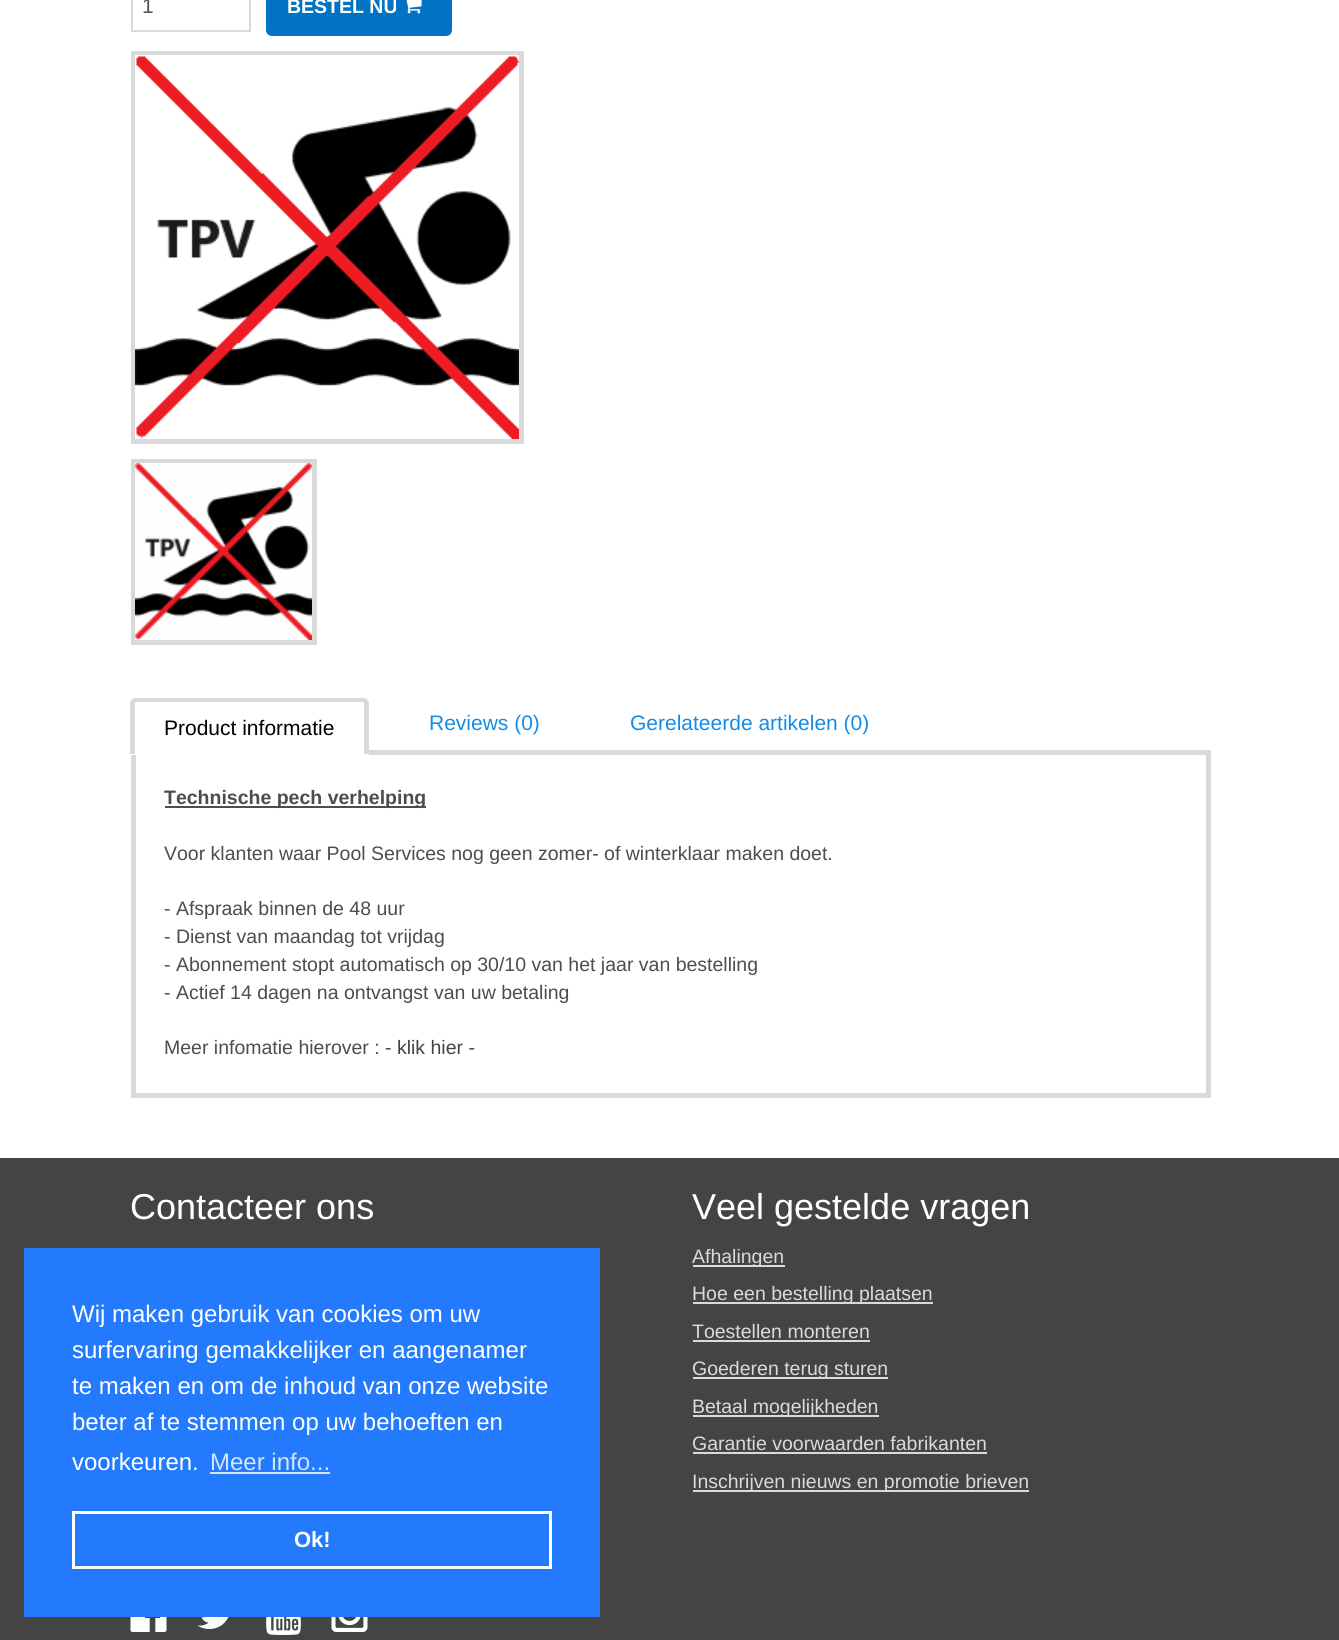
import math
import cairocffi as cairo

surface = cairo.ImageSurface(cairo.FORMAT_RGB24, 1339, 1640)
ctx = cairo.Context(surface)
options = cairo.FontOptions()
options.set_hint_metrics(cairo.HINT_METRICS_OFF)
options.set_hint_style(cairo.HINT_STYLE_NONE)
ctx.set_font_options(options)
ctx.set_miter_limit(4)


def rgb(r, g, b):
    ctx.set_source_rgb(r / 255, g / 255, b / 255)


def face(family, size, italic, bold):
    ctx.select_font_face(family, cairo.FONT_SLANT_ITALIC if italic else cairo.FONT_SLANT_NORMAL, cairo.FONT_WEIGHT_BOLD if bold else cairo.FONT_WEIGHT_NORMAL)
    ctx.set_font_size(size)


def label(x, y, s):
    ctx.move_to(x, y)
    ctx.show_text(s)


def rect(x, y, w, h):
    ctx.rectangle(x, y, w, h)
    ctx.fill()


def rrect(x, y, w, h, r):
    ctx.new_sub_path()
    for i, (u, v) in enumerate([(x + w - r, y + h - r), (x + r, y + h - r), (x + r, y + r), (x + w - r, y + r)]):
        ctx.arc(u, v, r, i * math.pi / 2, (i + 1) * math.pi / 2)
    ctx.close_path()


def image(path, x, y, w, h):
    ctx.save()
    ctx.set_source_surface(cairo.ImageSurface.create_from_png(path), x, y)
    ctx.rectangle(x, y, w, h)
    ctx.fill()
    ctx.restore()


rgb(255, 255, 255)
ctx.paint()
ctx.rectangle(132, -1, 118, 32)
rgb(217, 217, 217)
ctx.stroke()
face('Liberation Sans', 21, 0, 0)
rgb(85, 85, 85)
label(142, 13, '1')
rgb(0, 115, 196)
rrect(266, -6, 186, 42, 6)
ctx.fill()
face('Liberation Sans', 19.5, 0, 1)
rgb(255, 255, 255)
label(287, 13, 'BESTEL NU')
image('image0.png', 406, 0, 16, 14)
ctx.rectangle(133.5, 53.5, 388, 388)
rgb(217, 217, 217)
ctx.set_line_width(5)
ctx.stroke()
image('image1.png', 135, 55, 384, 384)
ctx.rectangle(133.5, 461.5, 181, 181)
ctx.stroke()
image('image2.png', 135, 463, 177, 177)
ctx.rectangle(133.5, 752.5, 1075, 343)
ctx.stroke()
rgb(255, 255, 255)
ctx.new_path()
ctx.move_to(137, 698)
ctx.line_to(363, 698)
ctx.curve_to(366.5, 698, 369, 700.5, 369, 704)
ctx.line_to(369, 755)
ctx.line_to(131, 755)
ctx.line_to(131, 704)
ctx.curve_to(131, 700.5, 133.5, 698, 137, 698)
ctx.close_path()
ctx.fill()
rgb(217, 217, 217)
ctx.set_fill_rule(cairo.FILL_RULE_EVEN_ODD)
ctx.new_path()
ctx.move_to(136, 698)
ctx.line_to(363, 698)
ctx.curve_to(366, 698, 369, 700, 369, 704)
ctx.line_to(369, 754)
ctx.line_to(130, 754)
ctx.line_to(130, 704)
ctx.curve_to(130, 700, 133, 698, 136, 698)
ctx.close_path()
ctx.move_to(136, 702)
ctx.line_to(363, 702)
ctx.curve_to(364, 702, 364, 703, 364, 704)
ctx.line_to(364, 754)
ctx.line_to(135, 754)
ctx.line_to(135, 703)
ctx.close_path()
ctx.fill()
face('Liberation Sans', 21, 0, 0)
rgb(0, 0, 0)
label(164, 735, 'Product informatie')
rgb(20, 140, 231)
label(429, 730, 'Reviews (0)')
label(630, 730, 'Gerelateerde artikelen (0)')
rgb(75, 77, 81)
rect(165, 806, 261, 2)
face('Liberation Sans', 19.5, 0, 1)
label(164, 804, 'Technische pech verhelping')
face('Liberation Sans', 19.5, 0, 0)
label(164, 860, 'Voor klanten waar Pool Services nog geen zomer- of winterklaar maken doet.')
label(164, 915, '- Afspraak binnen de 48 uur')
label(164, 943, '- Dienst van maandag tot vrijdag')
label(164, 971, '- Abonnement stopt automatisch op 30/10 van het jaar van bestelling')
label(164, 999, '- Actief 14 dagen na ontvangst van uw betaling')
label(164, 1054, 'Meer infomatie hierover :')
rgb(68, 68, 68)
label(385, 1054, '- klik hier -')
rect(0, 1158, 1339, 482)
face('Liberation Sans', 36, 0, 0)
rgb(255, 255, 255)
label(130, 1219, 'Contacteer ons')
label(692, 1219, 'Veel gestelde vragen')
rgb(218, 218, 218)
rect(693, 1265, 92, 2)
face('Liberation Sans', 19.5, 0, 0)
label(692, 1263, 'Afhalingen')
rect(693, 1302, 240, 2)
label(692, 1300, 'Hoe een bestelling plaatsen')
label(692, 1338, 'Toestellen monteren')
rect(693, 1340, 177, 2)
rect(693, 1377, 195, 2)
label(692, 1375, 'Goederen terug sturen')
rect(693, 1415, 186, 2)
label(692, 1413, 'Betaal mogelijkheden')
label(692, 1450, 'Garantie voorwaarden fabrikanten')
rect(693, 1452, 294, 2)
rect(693, 1490, 336, 2)
label(692, 1488, 'Inschrijven nieuws en promotie brieven')
image('image3.png', 130, 1617, 37, 15)
image('image4.png', 197, 1617, 32, 12)
image('image5.png', 266, 1617, 35, 18)
image('image6.png', 331, 1617, 37, 15)
rgb(35, 122, 252)
rect(24, 1248, 576, 369)
face('Liberation Sans', 24, 0, 0)
rgb(255, 255, 255)
label(72, 1322, 'Wij maken gebruik van cookies om uw')
label(72, 1358, 'surfervaring gemakkelijker en aangenamer')
label(72, 1394, 'te maken en om de inhoud van onze website')
label(72, 1430, 'beter af te stemmen op uw behoeften en')
label(72, 1470, 'voorkeuren.')
rgb(211, 228, 254)
label(210, 1470, 'Meer info...')
rect(210, 1472, 120, 2)
ctx.rectangle(73.5, 1512.5, 477, 55)
rgb(255, 255, 255)
ctx.set_line_width(3)
ctx.stroke()
face('Liberation Sans', 22, 0, 1)
label(294, 1547, 'Ok!')
surface.write_to_png('render.png')
